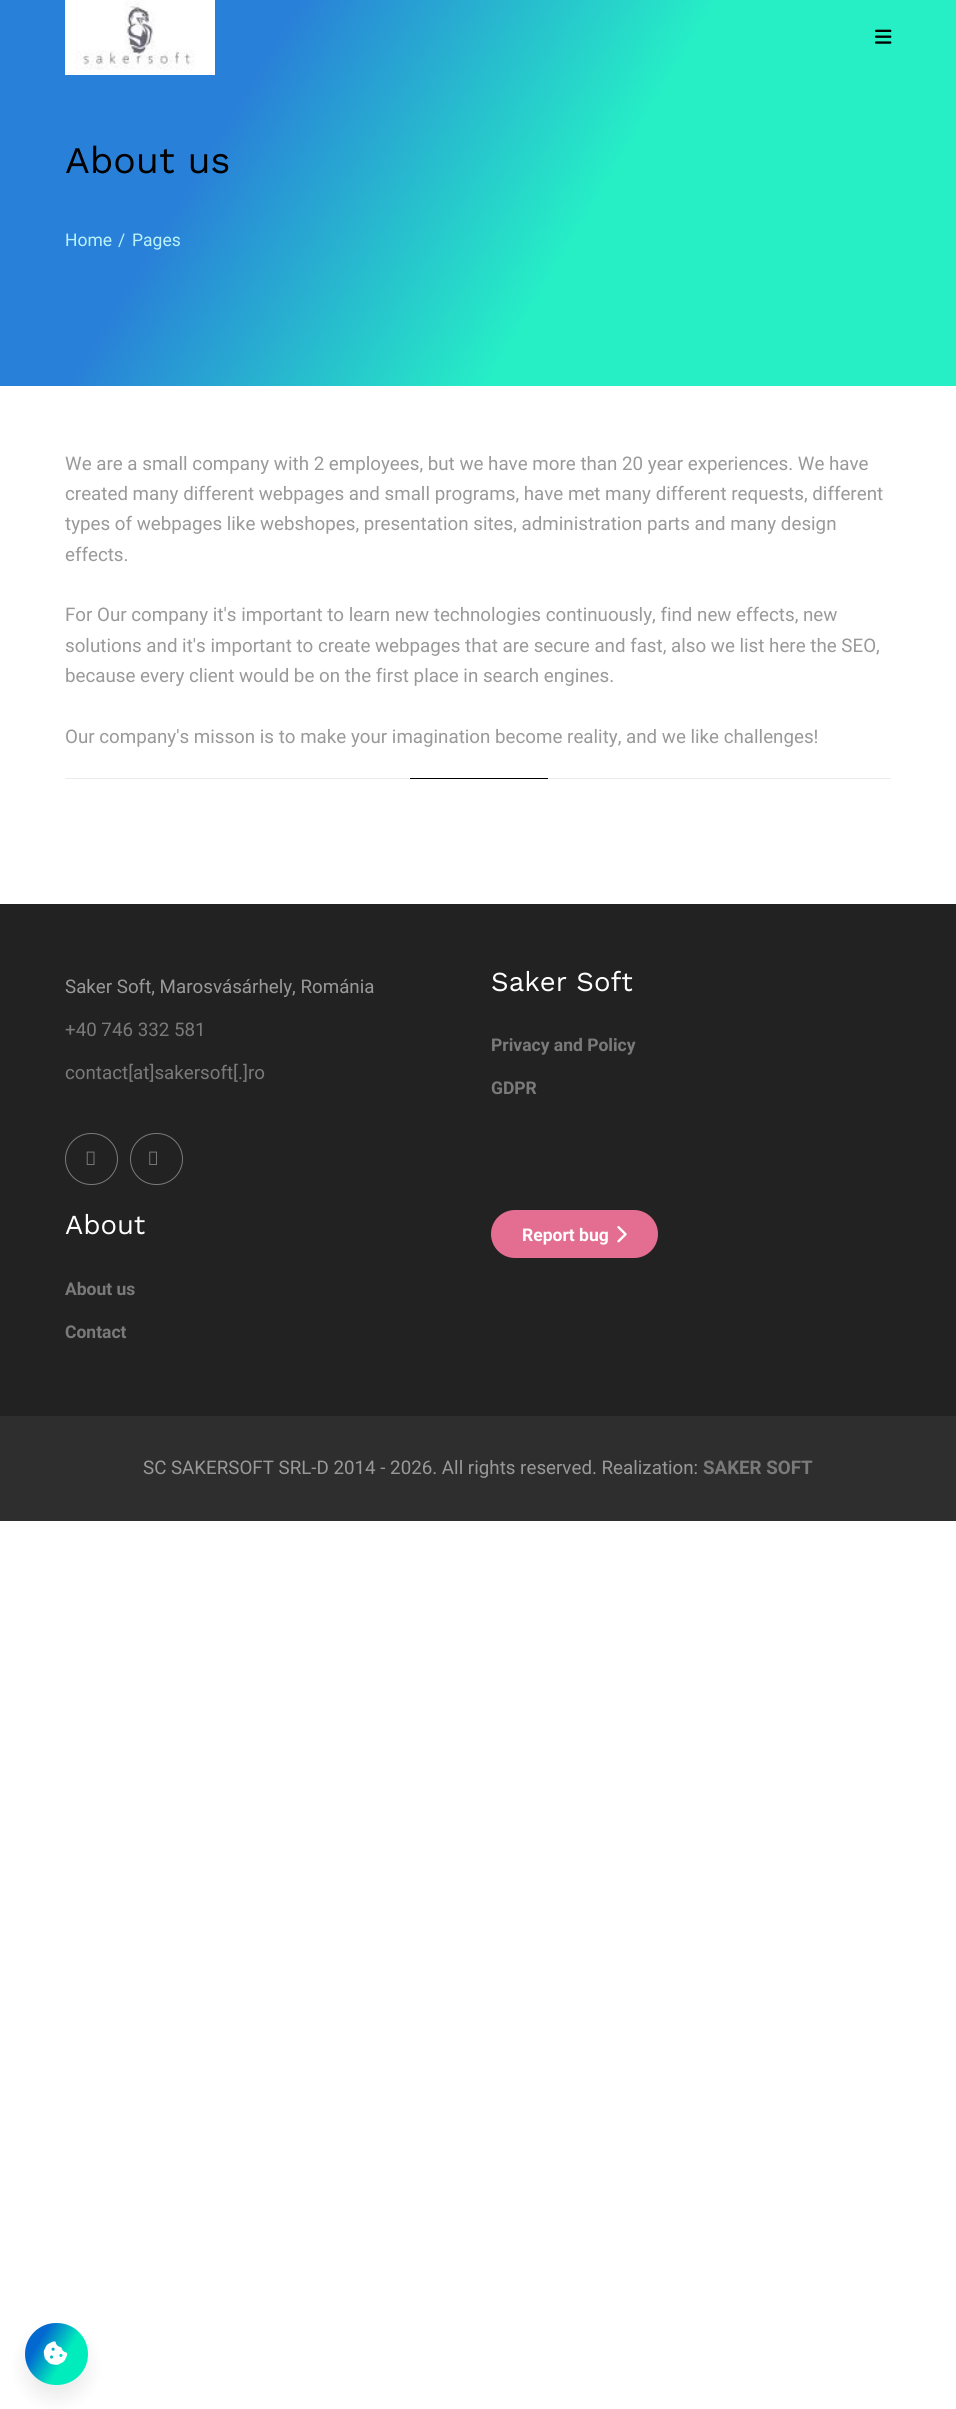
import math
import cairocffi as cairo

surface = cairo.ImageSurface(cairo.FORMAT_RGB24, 956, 2409)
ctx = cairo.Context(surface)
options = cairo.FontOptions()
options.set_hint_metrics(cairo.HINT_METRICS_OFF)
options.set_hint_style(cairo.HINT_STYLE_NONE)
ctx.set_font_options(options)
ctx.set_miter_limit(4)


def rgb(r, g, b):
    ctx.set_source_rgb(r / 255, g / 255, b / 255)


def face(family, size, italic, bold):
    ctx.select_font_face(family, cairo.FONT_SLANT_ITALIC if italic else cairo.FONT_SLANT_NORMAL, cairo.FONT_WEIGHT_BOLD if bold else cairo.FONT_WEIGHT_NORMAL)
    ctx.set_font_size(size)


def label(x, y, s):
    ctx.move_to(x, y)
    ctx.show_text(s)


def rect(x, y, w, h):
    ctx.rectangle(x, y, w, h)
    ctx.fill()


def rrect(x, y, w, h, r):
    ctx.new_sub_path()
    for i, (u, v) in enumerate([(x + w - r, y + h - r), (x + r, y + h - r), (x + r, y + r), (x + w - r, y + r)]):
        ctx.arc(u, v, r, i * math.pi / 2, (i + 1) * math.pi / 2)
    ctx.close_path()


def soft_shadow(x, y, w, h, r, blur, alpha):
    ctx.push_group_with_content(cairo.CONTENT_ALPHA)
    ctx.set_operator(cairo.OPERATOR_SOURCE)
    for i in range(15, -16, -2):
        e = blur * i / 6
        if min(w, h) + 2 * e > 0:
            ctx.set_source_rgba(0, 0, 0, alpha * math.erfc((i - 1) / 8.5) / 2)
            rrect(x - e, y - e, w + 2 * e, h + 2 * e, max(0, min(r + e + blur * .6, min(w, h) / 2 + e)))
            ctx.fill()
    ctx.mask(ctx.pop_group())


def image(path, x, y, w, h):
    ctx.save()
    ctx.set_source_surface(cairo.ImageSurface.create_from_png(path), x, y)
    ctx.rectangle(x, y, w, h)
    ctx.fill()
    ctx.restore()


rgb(255, 255, 255)
ctx.paint()
gradient = cairo.LinearGradient(43, -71, 923, 458)
gradient.add_color_stop_rgba(0, 0.161, 0.502, 0.847, 1)
gradient.add_color_stop_rgba(0.25, 0.161, 0.502, 0.847, 1)
gradient.add_color_stop_rgba(0.6, 0.149, 0.937, 0.776, 1)
ctx.set_source(gradient)
rect(0, 0, 956, 386)
image('image0.png', 65, 0, 150, 75)
image('image1.png', 875, 29, 17, 15)
face('Work Sans', 37.5, 0, 0)
rgb(0, 0, 0)
label(65, 173, 'About us')
face('Roboto', 17.5, 0, 0)
rgb(187, 243, 251)
label(65, 246, 'Home')
label(118, 246, '/')
label(132, 246, 'Pages')
rgb(235, 235, 235)
rect(65, 778, 826, 1)
face('Roboto', 18.75, 0, 0)
rgb(153, 153, 153)
label(65, 470, 'We are a small company with 2 employees, but we have more than 20 year experiences. We have')
label(65, 500, 'created many different webpages and small programs, have met many different requests, different')
label(65, 530, 'types of webpages like webshopes, presentation sites, administration parts and many design')
label(65, 561, 'effects.')
label(65, 621, 'For Our company it\'s important to learn new technologies continuously, find new effects, new')
label(65, 652, 'solutions and it\'s important to create webpages that are secure and fast, also we list here the SEO,')
label(65, 682, 'because every client would be on the first place in search engines.')
label(65, 743, 'Our company\'s misson is to make your imagination become reality, and we like challenges!')
rgb(0, 0, 0)
rect(410, 778, 138, 1)
rgb(34, 34, 34)
rect(0, 904, 956, 512)
rgb(153, 153, 153)
label(65, 993, 'Saker Soft, Marosvásárhely, Románia')
rgb(122, 122, 122)
label(65, 1036, '+40 746 332 581')
label(65, 1079, 'contact[at]sakersoft[.]ro')
rrect(65.5, 1133.5, 52, 51, 25.5)
ctx.set_line_width(1)
ctx.stroke()
image('image2.png', 86, 1151, 9, 14)
rrect(130.5, 1133.5, 52, 51, 25.5)
ctx.stroke()
image('image3.png', 149, 1151, 8, 14)
face('Work Sans', 27.5, 0, 0)
rgb(255, 255, 255)
label(491, 991, 'Saker Soft')
face('Roboto', 17.5, 0, 1)
rgb(122, 122, 122)
label(491, 1051, 'Privacy and Policy')
label(491, 1094, 'GDPR')
face('Work Sans', 27.5, 0, 0)
rgb(255, 255, 255)
label(65, 1234, 'About')
face('Roboto', 17.5, 0, 1)
rgb(122, 122, 122)
label(65, 1295, 'About us')
label(65, 1338, 'Contact')
rgb(227, 110, 145)
rrect(491, 1210, 167, 48, 24)
ctx.fill()
rgb(255, 255, 255)
label(522, 1241, 'Report bug')
image('image4.png', 617, 1226, 10, 17)
rgb(46, 46, 46)
rect(0, 1416, 956, 105)
face('Roboto', 18.75, 0, 0)
rgb(153, 153, 153)
label(143, 1474, 'SC SAKERSOFT SRL-D 2014 - 2026. All rights reserved. Realization:')
face('Roboto', 18.75, 0, 1)
rgb(122, 122, 122)
label(703, 1474, 'SAKER SOFT')
rgb(0, 0, 0)
soft_shadow(25, 2335, 63, 63, 31.5, 9.5, 0.08)
gradient = cairo.LinearGradient(20, 2332, 94, 2376)
gradient.add_color_stop_rgba(0, 0.012, 0.412, 0.82, 1)
gradient.add_color_stop_rgba(0.25, 0.012, 0.412, 0.82, 1)
gradient.add_color_stop_rgba(0.6, 0, 0.925, 0.737, 1)
ctx.set_source(gradient)
rrect(25, 2323, 63, 62, 31)
ctx.fill()
image('image5.png', 43, 2341, 25, 24)
surface.write_to_png('render.png')
